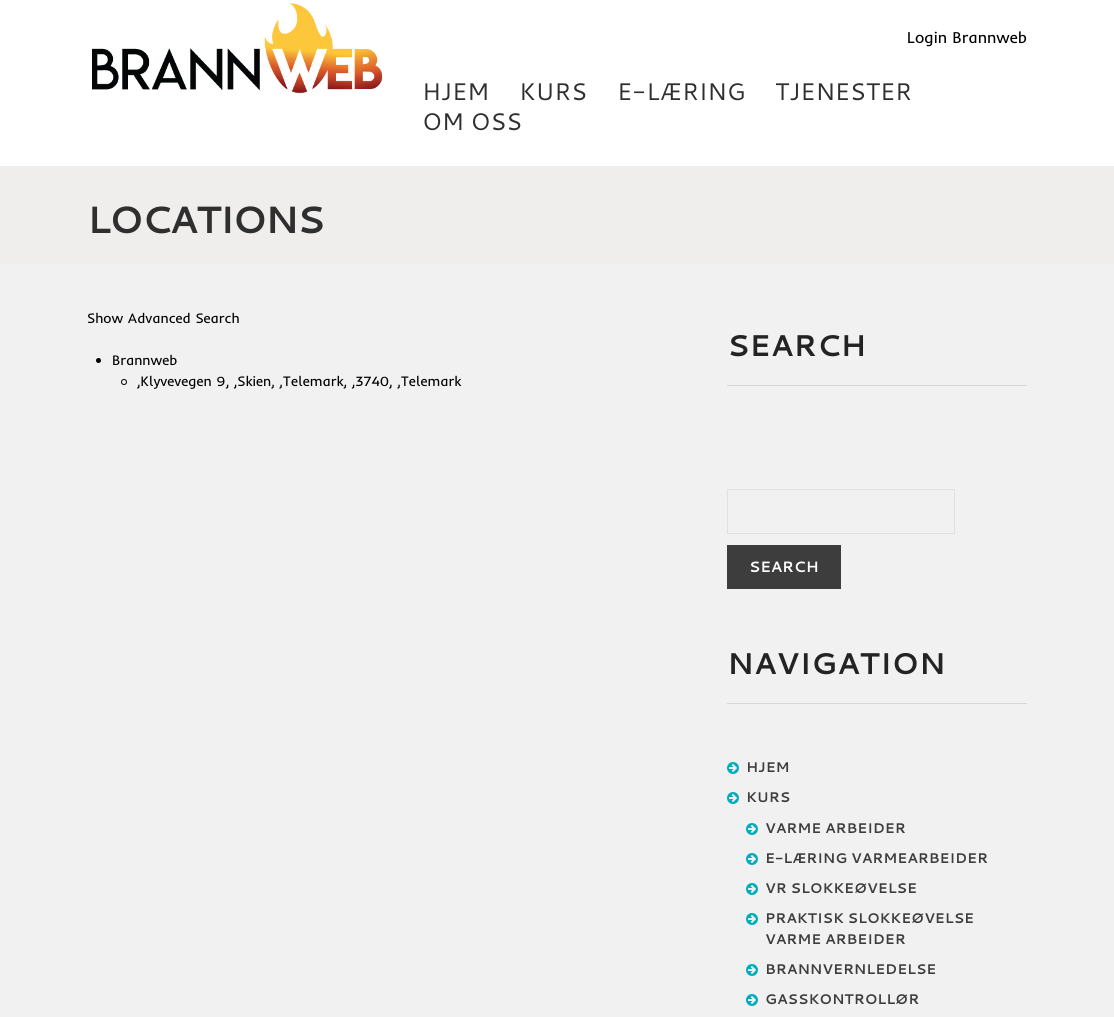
import math
import cairocffi as cairo

surface = cairo.ImageSurface(cairo.FORMAT_RGB24, 1114, 1017)
ctx = cairo.Context(surface)
options = cairo.FontOptions()
options.set_hint_metrics(cairo.HINT_METRICS_OFF)
options.set_hint_style(cairo.HINT_STYLE_NONE)
ctx.set_font_options(options)
ctx.set_miter_limit(4)


def rgb(r, g, b):
    ctx.set_source_rgb(r / 255, g / 255, b / 255)


def face(family, size, italic, bold):
    ctx.select_font_face(family, cairo.FONT_SLANT_ITALIC if italic else cairo.FONT_SLANT_NORMAL, cairo.FONT_WEIGHT_BOLD if bold else cairo.FONT_WEIGHT_NORMAL)
    ctx.set_font_size(size)


def label(x, y, s):
    ctx.move_to(x, y)
    ctx.show_text(s)


def tracked(x, y, s, letter, word):
    ctx.move_to(x, y)
    for ch in s:
        ctx.show_text(ch)
        ctx.rel_move_to(letter + word * (ch == ' '), 0)


def rect(x, y, w, h):
    ctx.rectangle(x, y, w, h)
    ctx.fill()


def image(path, x, y, w, h):
    ctx.save()
    ctx.set_source_surface(cairo.ImageSurface.create_from_png(path), x, y)
    ctx.rectangle(x, y, w, h)
    ctx.fill()
    ctx.restore()


rgb(241, 241, 241)
ctx.paint()
rgb(255, 255, 255)
rect(0, 0, 1114, 166)
image('image0.png', 92, 3, 291, 91)
face('Inder', 16, 0, 0)
rgb(0, 0, 0)
label(907, 43, 'Login Brannweb')
face('Cantarell', 24, 0, 0)
rgb(47, 47, 47)
label(422, 100, 'HJEM')
label(519, 100, 'KURS')
label(617, 100, 'E-LÆRING')
label(775, 100, 'TJENESTER')
label(422, 130, 'OM OSS')
rgb(240, 238, 237)
rect(0, 166, 1114, 98)
face('Cantarell', 38, 0, 1)
rgb(47, 47, 47)
tracked(87, 233, 'LOCATIONS', -2, 0)
face('Inder', 14, 0, 0)
rgb(0, 0, 0)
label(87, 323, 'Show Advanced Search')
ctx.new_path()
ctx.arc(98.5, 360.5, 2.5, 0, 2 * math.pi)
ctx.fill()
label(112, 365, 'Brannweb')
ctx.new_path()
ctx.arc(124, 382, 2.5, 0, 2 * math.pi)
ctx.set_line_width(1)
ctx.stroke()
label(137, 386, ',Klyvevegen 9, ,Skien, ,Telemark, ,3740, ,Telemark')
rgb(215, 215, 215)
rect(727, 385, 300, 1)
face('Cantarell', 30, 0, 1)
rgb(35, 35, 35)
label(727, 356, 'SEARCH')
ctx.rectangle(727.5, 489.5, 227, 44)
rgb(225, 224, 224)
ctx.stroke()
rgb(61, 61, 61)
rect(727, 545, 114, 44)
face('Cantarell', 15, 0, 1)
rgb(255, 255, 255)
label(749, 572, 'SEARCH')
rgb(215, 215, 215)
rect(727, 703, 300, 1)
face('Cantarell', 30, 0, 1)
rgb(35, 35, 35)
label(727, 674, 'NAVIGATION')
image('image1.png', 727, 762, 12, 12)
face('Cantarell', 14, 0, 1)
rgb(61, 61, 61)
label(746, 772, 'HJEM')
image('image1.png', 727, 792, 12, 12)
label(746, 802, 'KURS')
image('image1.png', 746, 823, 12, 12)
label(765, 833, 'VARME ARBEIDER')
image('image1.png', 746, 853, 12, 12)
label(765, 863, 'E-LÆRING VARMEARBEIDER')
image('image1.png', 746, 883, 12, 12)
label(765, 893, 'VR SLOKKEØVELSE')
image('image1.png', 746, 913, 12, 12)
label(765, 923, 'PRAKTISK SLOKKEØVELSE')
label(765, 944, 'VARME ARBEIDER')
image('image1.png', 746, 964, 12, 12)
label(765, 974, 'BRANNVERNLEDELSE')
image('image1.png', 746, 994, 12, 12)
label(765, 1004, 'GASSKONTROLLØR')
surface.write_to_png('render.png')
